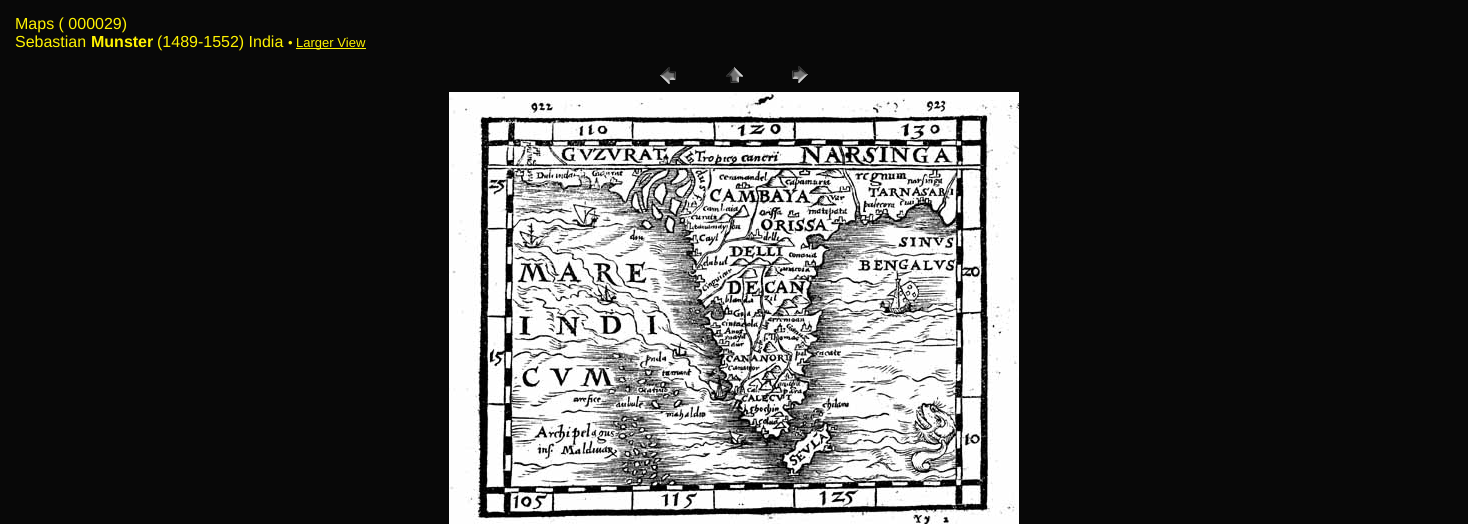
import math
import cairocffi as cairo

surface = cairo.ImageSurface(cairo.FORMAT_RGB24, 1468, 524)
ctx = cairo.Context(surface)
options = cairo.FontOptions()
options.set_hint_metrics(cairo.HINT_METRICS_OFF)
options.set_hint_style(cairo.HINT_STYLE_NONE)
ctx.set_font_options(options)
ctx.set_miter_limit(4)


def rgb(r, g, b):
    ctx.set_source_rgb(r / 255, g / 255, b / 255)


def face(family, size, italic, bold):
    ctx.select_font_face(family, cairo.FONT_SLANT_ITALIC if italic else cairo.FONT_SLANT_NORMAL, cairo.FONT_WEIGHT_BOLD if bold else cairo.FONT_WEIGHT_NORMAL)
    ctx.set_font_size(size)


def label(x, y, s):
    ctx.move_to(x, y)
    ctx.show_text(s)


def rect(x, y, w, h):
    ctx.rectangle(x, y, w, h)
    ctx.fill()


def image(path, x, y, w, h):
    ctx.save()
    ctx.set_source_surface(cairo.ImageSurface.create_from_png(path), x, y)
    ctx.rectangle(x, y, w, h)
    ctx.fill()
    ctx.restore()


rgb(8, 8, 8)
ctx.paint()
face('Liberation Sans', 16, 0, 0)
rgb(255, 242, 0)
label(15, 29, 'Maps ( 000029)')
label(15, 47, 'Sebastian')
face('Liberation Sans', 16, 0, 1)
label(91, 47, 'Munster')
face('Liberation Sans', 16, 0, 0)
label(157, 47, '(1489-1552) India')
face('Liberation Sans', 13, 0, 0)
label(288, 47, '•')
rect(296, 48, 70, 1)
label(296, 47, 'Larger View')
image('image0.png', 660, 67, 16, 17)
image('image1.png', 726, 67, 17, 16)
image('image2.png', 792, 66, 16, 17)
image('image3.png', 449, 92, 570, 432)
surface.write_to_png('render.png')
